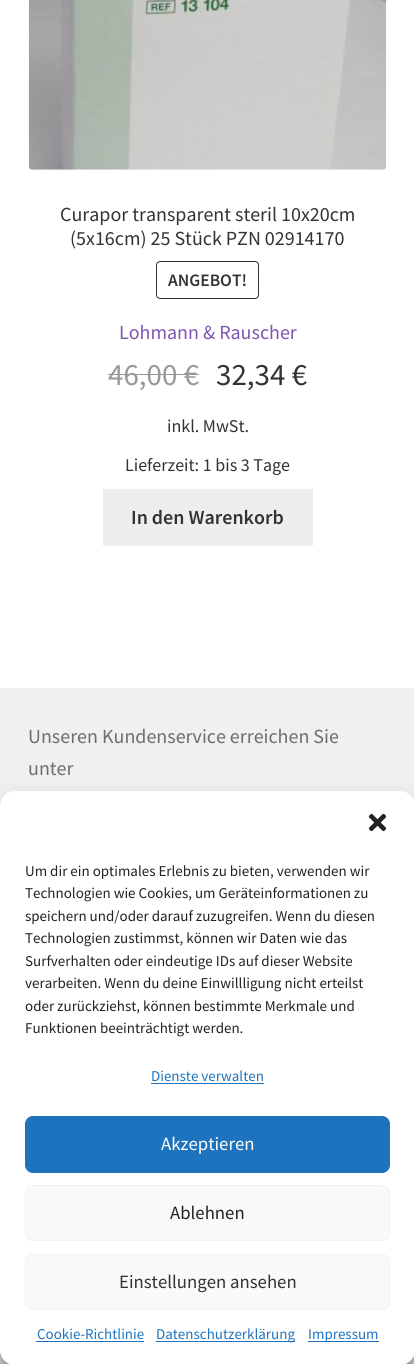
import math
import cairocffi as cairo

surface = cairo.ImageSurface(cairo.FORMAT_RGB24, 414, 1364)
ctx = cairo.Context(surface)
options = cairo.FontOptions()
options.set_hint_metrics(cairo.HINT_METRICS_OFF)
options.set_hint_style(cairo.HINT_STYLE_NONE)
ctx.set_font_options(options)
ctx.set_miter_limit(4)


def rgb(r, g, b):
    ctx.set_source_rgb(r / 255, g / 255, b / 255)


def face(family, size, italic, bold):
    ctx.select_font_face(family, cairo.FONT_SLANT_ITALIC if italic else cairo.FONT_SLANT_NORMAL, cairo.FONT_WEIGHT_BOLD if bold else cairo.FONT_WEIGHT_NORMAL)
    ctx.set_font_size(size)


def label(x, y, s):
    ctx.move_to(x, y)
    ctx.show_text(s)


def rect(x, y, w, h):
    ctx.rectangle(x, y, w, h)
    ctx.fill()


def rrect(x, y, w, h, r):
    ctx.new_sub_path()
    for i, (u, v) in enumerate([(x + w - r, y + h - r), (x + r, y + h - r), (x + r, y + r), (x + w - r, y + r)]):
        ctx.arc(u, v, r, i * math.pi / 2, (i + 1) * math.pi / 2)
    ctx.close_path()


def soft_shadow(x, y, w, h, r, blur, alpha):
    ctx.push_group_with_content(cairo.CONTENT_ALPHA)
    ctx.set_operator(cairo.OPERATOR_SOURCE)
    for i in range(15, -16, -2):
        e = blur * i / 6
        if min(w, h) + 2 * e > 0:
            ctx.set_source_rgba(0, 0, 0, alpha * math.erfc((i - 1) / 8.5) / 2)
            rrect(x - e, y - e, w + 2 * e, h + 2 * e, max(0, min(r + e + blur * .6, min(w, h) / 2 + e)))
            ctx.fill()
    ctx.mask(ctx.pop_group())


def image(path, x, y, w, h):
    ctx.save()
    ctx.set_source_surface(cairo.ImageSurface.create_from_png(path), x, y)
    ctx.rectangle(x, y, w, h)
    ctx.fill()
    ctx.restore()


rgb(255, 255, 255)
ctx.paint()
image('image0.png', 28, 0, 359, 170)
face('Source Sans Pro', 20, 0, 0)
rgb(51, 51, 51)
label(60, 221, 'Curapor transparent steril 10x20cm')
label(70, 245, '(5x16cm) 25 Stück PZN 02914170')
rrect(156.5, 261.5, 102, 37, 3.5)
rgb(48, 48, 48)
ctx.set_line_width(1)
ctx.stroke()
face('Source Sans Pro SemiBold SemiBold', 17.5, 0, 0)
rgb(51, 51, 51)
label(168, 286, 'ANGEBOT!')
face('Source Sans Pro', 20, 0, 0)
rgb(127, 84, 179)
label(119, 339, 'Lohmann & Rauscher')
face('Source Sans Pro', 31, 0, 0)
rgb(152, 152, 152)
label(108, 385, '46,00 €')
rect(108, 374, 91, 1)
rgb(51, 51, 51)
label(216, 385, '32,34 €')
face('Source Sans Pro', 18, 0, 0)
label(167, 432, 'inkl. MwSt.')
label(125, 471, 'Lieferzeit: 1 bis 3 Tage')
rgb(238, 238, 238)
rect(103, 489, 210, 57)
face('Source Sans Pro SemiBold SemiBold', 20, 0, 0)
rgb(51, 51, 51)
label(131, 524, 'In den Warenkorb')
rgb(240, 240, 240)
rect(0, 688, 414, 118)
face('Source Sans Pro', 20, 0, 0)
rgb(109, 109, 109)
label(28, 743, 'Unseren Kundenservice erreichen Sie')
label(28, 775, 'unter')
rgb(221, 221, 221)
rect(0, 1350, 10, 14)
rect(405, 1355, 9, 9)
rgb(0, 0, 0)
soft_shadow(0, 799, 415, 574, 15, 4, 0.23)
soft_shadow(0, 804, 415, 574, 15, 12.5, 0.19)
rgb(255, 255, 255)
rrect(0, 791, 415, 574, 15)
ctx.fill()
image('image1.png', 368, 813, 19, 19)
face('Source Sans Pro', 15, 0, 0)
rgb(34, 34, 34)
label(25, 876, 'Um dir ein optimales Erlebnis zu bieten, verwenden wir')
label(25, 898, 'Technologien wie Cookies, um Geräteinformationen zu')
label(25, 921, 'speichern und/oder darauf zuzugreifen. Wenn du diesen')
label(25, 943, 'Technologien zustimmst, können wir Daten wie das')
label(25, 966, 'Surfverhalten oder eindeutige IDs auf dieser Website')
label(25, 988, 'verarbeiten. Wenn du deine Einwillligung nicht erteilst')
label(25, 1011, 'oder zurückziehst, können bestimmte Merkmale und')
label(25, 1033, 'Funktionen beeinträchtigt werden.')
rgb(30, 115, 190)
label(151, 1081, 'Dienste verwalten')
rect(151, 1083, 113, 1)
rrect(25.5, 1116.5, 364, 56, 7.5)
ctx.fill_preserve()
ctx.stroke()
face('Source Sans Pro', 18.75, 0, 0)
rgb(255, 255, 255)
label(161, 1150, 'Akzeptieren')
rgb(249, 249, 249)
rrect(25.5, 1185.5, 364, 55, 7.5)
ctx.fill_preserve()
rgb(242, 242, 242)
ctx.stroke()
rgb(34, 34, 34)
label(170, 1219, 'Ablehnen')
rgb(249, 249, 249)
rrect(25.5, 1254.5, 364, 55, 7.5)
ctx.fill_preserve()
rgb(242, 242, 242)
ctx.stroke()
rgb(51, 51, 51)
label(119, 1288, 'Einstellungen ansehen')
face('Source Sans Pro', 15, 0, 0)
rgb(30, 115, 190)
label(37, 1339, 'Cookie-Richtlinie')
rect(36, 1341, 108, 1)
rect(156, 1341, 139, 1)
label(156, 1339, 'Datenschutzerklärung')
rect(308, 1341, 71, 1)
label(308, 1339, 'Impressum')
surface.write_to_png('render.png')
